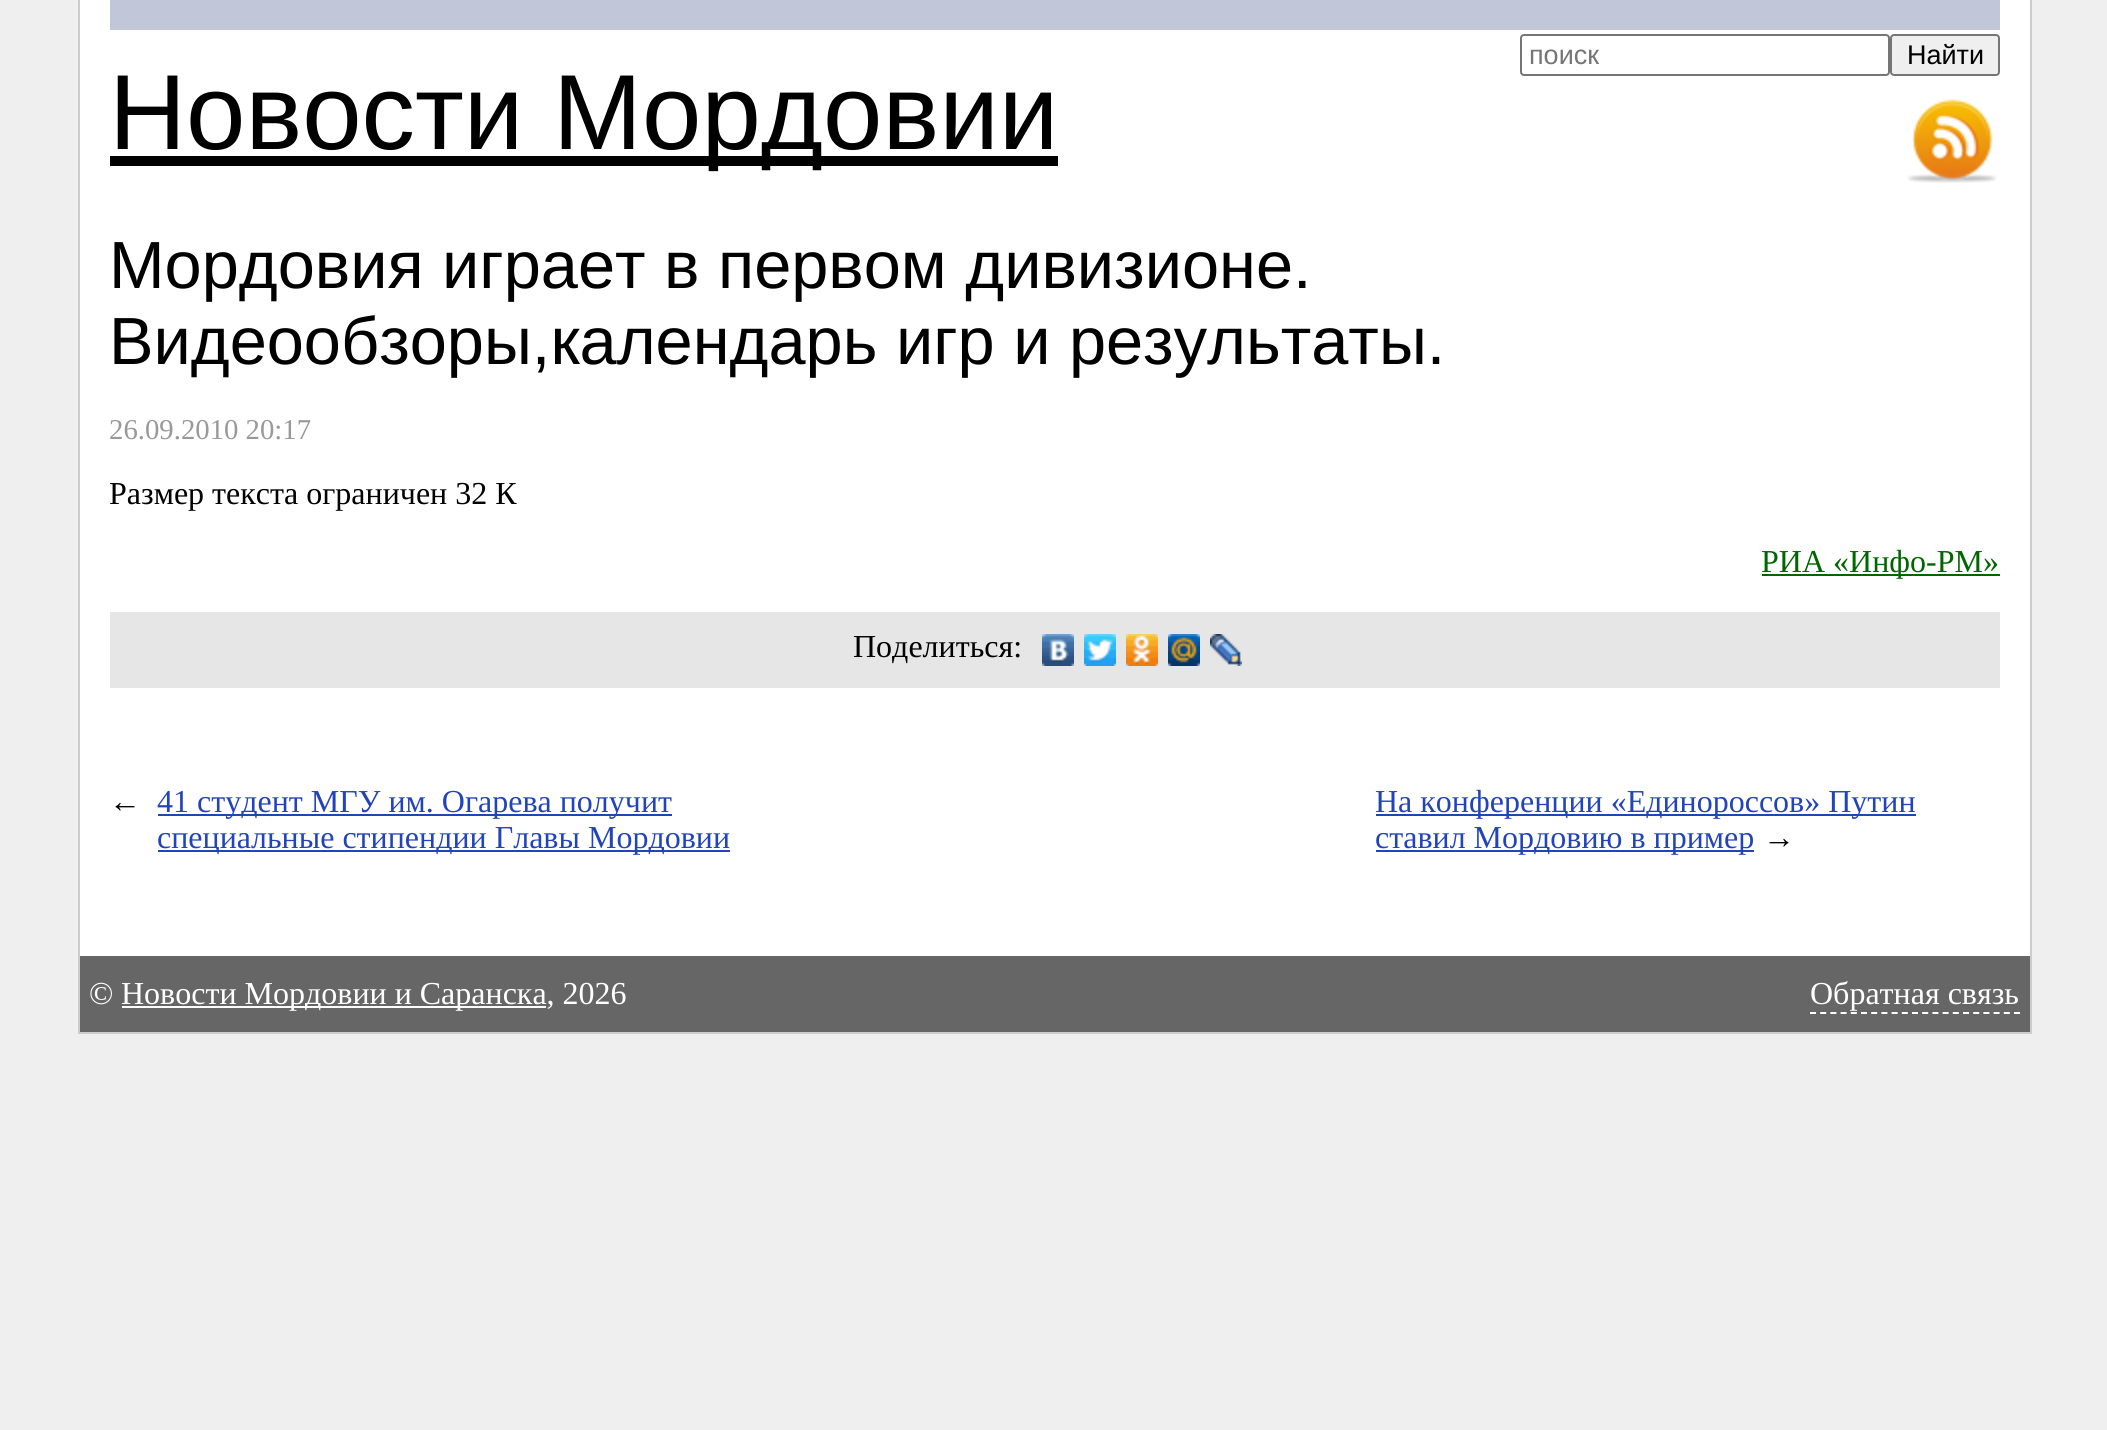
import math
import cairocffi as cairo

surface = cairo.ImageSurface(cairo.FORMAT_RGB24, 2107, 1430)
ctx = cairo.Context(surface)
options = cairo.FontOptions()
options.set_hint_metrics(cairo.HINT_METRICS_OFF)
options.set_hint_style(cairo.HINT_STYLE_NONE)
ctx.set_font_options(options)
ctx.set_miter_limit(4)


def rgb(r, g, b):
    ctx.set_source_rgb(r / 255, g / 255, b / 255)


def face(family, size, italic, bold):
    ctx.select_font_face(family, cairo.FONT_SLANT_ITALIC if italic else cairo.FONT_SLANT_NORMAL, cairo.FONT_WEIGHT_BOLD if bold else cairo.FONT_WEIGHT_NORMAL)
    ctx.set_font_size(size)


def label(x, y, s):
    ctx.move_to(x, y)
    ctx.show_text(s)


def rect(x, y, w, h):
    ctx.rectangle(x, y, w, h)
    ctx.fill()


def rrect(x, y, w, h, r):
    ctx.new_sub_path()
    for i, (u, v) in enumerate([(x + w - r, y + h - r), (x + r, y + h - r), (x + r, y + r), (x + w - r, y + r)]):
        ctx.arc(u, v, r, i * math.pi / 2, (i + 1) * math.pi / 2)
    ctx.close_path()


def image(path, x, y, w, h):
    ctx.save()
    ctx.set_source_surface(cairo.ImageSurface.create_from_png(path), x, y)
    ctx.rectangle(x, y, w, h)
    ctx.fill()
    ctx.restore()


rgb(239, 239, 239)
ctx.paint()
rgb(255, 255, 255)
rect(80, 0, 1950, 956)
rgb(204, 204, 204)
rect(2030, 0, 2, 1034)
rect(78, 1032, 1954, 2)
rect(78, 0, 2, 1034)
rgb(193, 199, 216)
rect(110, 0, 1890, 30)
rrect(1521, 35, 368, 40, 3)
rgb(118, 118, 118)
ctx.stroke()
face('Liberation Sans', 27, 0, 0)
rgb(117, 117, 117)
label(1529, 64, 'поиск')
rgb(239, 239, 239)
rrect(1891, 35, 108, 40, 3)
ctx.fill_preserve()
rgb(118, 118, 118)
ctx.stroke()
rgb(0, 0, 0)
label(1907, 64, 'Найти')
rect(110, 156, 948, 10)
face('Liberation Sans', 106.75, 0, 0)
label(109, 149, 'Новости Мордовии')
image('image0.png', 1907, 99, 90, 84)
face('Liberation Sans', 66.7, 0, 0)
label(109, 288, 'Мордовия играет в первом дивизионе.')
label(109, 364, 'Видеообзоры,календарь игр и результаты.')
face('Liberation Serif', 28.75, 0, 0)
rgb(153, 153, 153)
label(109, 439, '26.09.2010 20:17')
face('Liberation Serif', 32, 0, 0)
rgb(0, 0, 0)
label(109, 504, 'Размер текста ограничен 32 К')
rgb(0, 102, 0)
rect(1762, 574, 238, 2)
label(1761, 572, 'РИА «Инфо-РМ»')
rgb(230, 230, 230)
rect(110, 612, 1890, 76)
rgb(0, 0, 0)
label(853, 657, 'Поделиться:')
image('image1.png', 1042, 634, 32, 32)
image('image2.png', 1084, 634, 32, 32)
image('image3.png', 1126, 634, 32, 32)
image('image4.png', 1168, 634, 32, 32)
image('image5.png', 1210, 634, 32, 32)
label(109, 812, '←')
rgb(34, 68, 187)
rect(158, 814, 514, 2)
label(157, 812, '41 студент МГУ им. Огарева получит')
rect(158, 850, 572, 2)
label(157, 848, 'специальные стипендии Главы Мордовии')
rect(1376, 814, 540, 2)
label(1375, 812, 'На конференции «Единороссов» Путин')
rect(1376, 850, 378, 2)
label(1375, 848, 'ставил Мордовию в пример')
rgb(0, 0, 0)
label(1763, 848, '→')
rgb(102, 102, 102)
rect(80, 956, 1950, 76)
rgb(255, 255, 255)
label(89, 1004, '©')
rect(122, 1006, 424, 2)
label(121, 1004, 'Новости Мордовии и Саранска, 2026')
ctx.new_path()
ctx.move_to(1810, 1013)
ctx.line_to(2020, 1013)
ctx.set_dash([6, 4.2])
ctx.stroke()
label(1810, 1004, 'Обратная связь')
surface.write_to_png('render.png')
